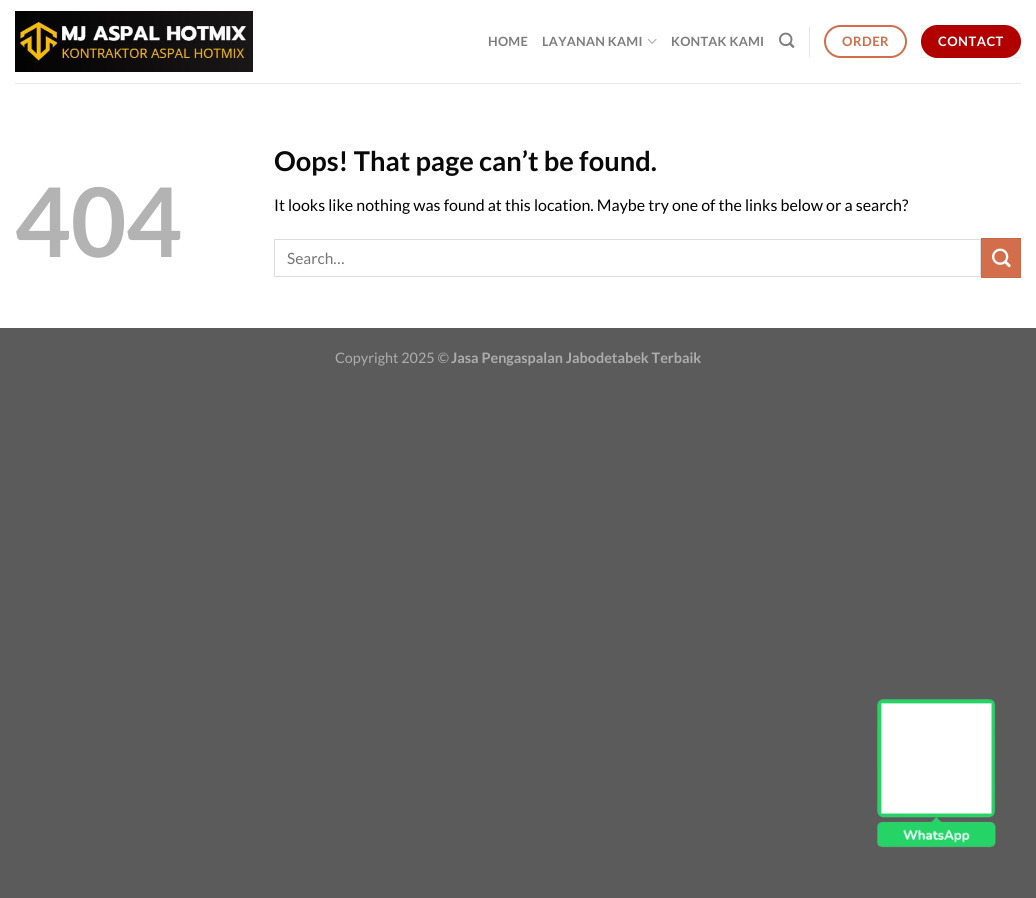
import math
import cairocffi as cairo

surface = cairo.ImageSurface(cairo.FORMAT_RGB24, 1036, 898)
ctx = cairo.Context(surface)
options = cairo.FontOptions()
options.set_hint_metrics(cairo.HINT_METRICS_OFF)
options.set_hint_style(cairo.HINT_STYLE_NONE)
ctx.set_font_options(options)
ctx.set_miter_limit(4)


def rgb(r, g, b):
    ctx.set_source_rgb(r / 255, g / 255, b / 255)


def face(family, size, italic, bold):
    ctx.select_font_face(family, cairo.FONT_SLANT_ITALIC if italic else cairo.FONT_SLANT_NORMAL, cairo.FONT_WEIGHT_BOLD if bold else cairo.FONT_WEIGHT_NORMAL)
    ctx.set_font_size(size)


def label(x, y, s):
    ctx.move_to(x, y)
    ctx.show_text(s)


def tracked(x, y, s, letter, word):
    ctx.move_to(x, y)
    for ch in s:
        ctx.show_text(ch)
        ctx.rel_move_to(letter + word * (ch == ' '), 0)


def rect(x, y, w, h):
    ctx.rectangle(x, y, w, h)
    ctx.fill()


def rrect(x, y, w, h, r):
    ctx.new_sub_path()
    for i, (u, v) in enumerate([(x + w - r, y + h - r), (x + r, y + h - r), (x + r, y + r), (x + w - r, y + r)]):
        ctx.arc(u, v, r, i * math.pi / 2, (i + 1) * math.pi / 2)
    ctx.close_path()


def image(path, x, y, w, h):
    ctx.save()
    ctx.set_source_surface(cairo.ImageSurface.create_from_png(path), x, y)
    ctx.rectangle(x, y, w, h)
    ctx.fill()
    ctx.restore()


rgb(91, 91, 91)
ctx.paint()
rgb(255, 255, 255)
rect(0, 0, 1036, 328)
image('image0.png', 15, 11, 238, 61)
face('Lato', 12.75, 0, 1)
rgb(125, 125, 125)
tracked(488, 46, 'HOME', 0.25, 0)
tracked(542, 46, 'LAYANAN KAMI', 0.25, 0)
image('image1.png', 647, 38, 10, 6)
tracked(671, 46, 'KONTAK KAMI', 0.25, 0)
image('image2.png', 779, 32, 16, 16)
rgb(230, 230, 230)
rect(809, 27, 1, 30)
rrect(825, 26, 81, 31, 15.5)
rgb(210, 110, 75)
ctx.stroke()
face('Lato', 13, 0, 1)
tracked(842, 46, 'ORDER', 0.5, 0)
rgb(178, 0, 0)
rrect(921, 25, 100, 33, 16.5)
ctx.fill()
ctx.rectangle(921.5, 25.5, 99, 32)
ctx.set_source_rgba(0, 0, 0, 0.05)
ctx.set_line_width(1)
ctx.stroke()
rgb(255, 255, 255)
tracked(938, 46, 'CONTACT', 0.5, 0)
rgb(230, 230, 230)
rect(15, 83, 1006, 1)
face('Lato', 96, 0, 1)
rgb(179, 179, 179)
label(15, 257, '404')
face('Lato', 27.25, 0, 1)
rgb(10, 9, 9)
label(274, 171, 'Oops! That page can’t be found.')
face('Lato', 16, 0, 0)
rgb(0, 0, 0)
label(274, 211, 'It looks like nothing was found at this location. Maybe try one of the links below or a search?')
ctx.rectangle(274.5, 239.5, 706, 37)
rgb(221, 221, 221)
ctx.stroke()
face('Lato', 15.5, 0, 0)
rgb(117, 117, 117)
label(287, 264, 'Search…')
rgb(210, 110, 75)
ctx.rectangle(981.5, 238.5, 39, 39)
ctx.fill_preserve()
rgb(200, 105, 71)
ctx.stroke()
image('image3.png', 992, 248, 19, 20)
face('Lato', 14.4, 0, 0)
rgb(173, 173, 173)
label(335, 363, 'Copyright 2025 ©')
face('Lato', 14.4, 0, 1)
label(451, 363, 'Jasa Pengaspalan Jabodetabek Terbaik')
image('image4.png', 877, 699, 119, 149)
surface.write_to_png('render.png')
